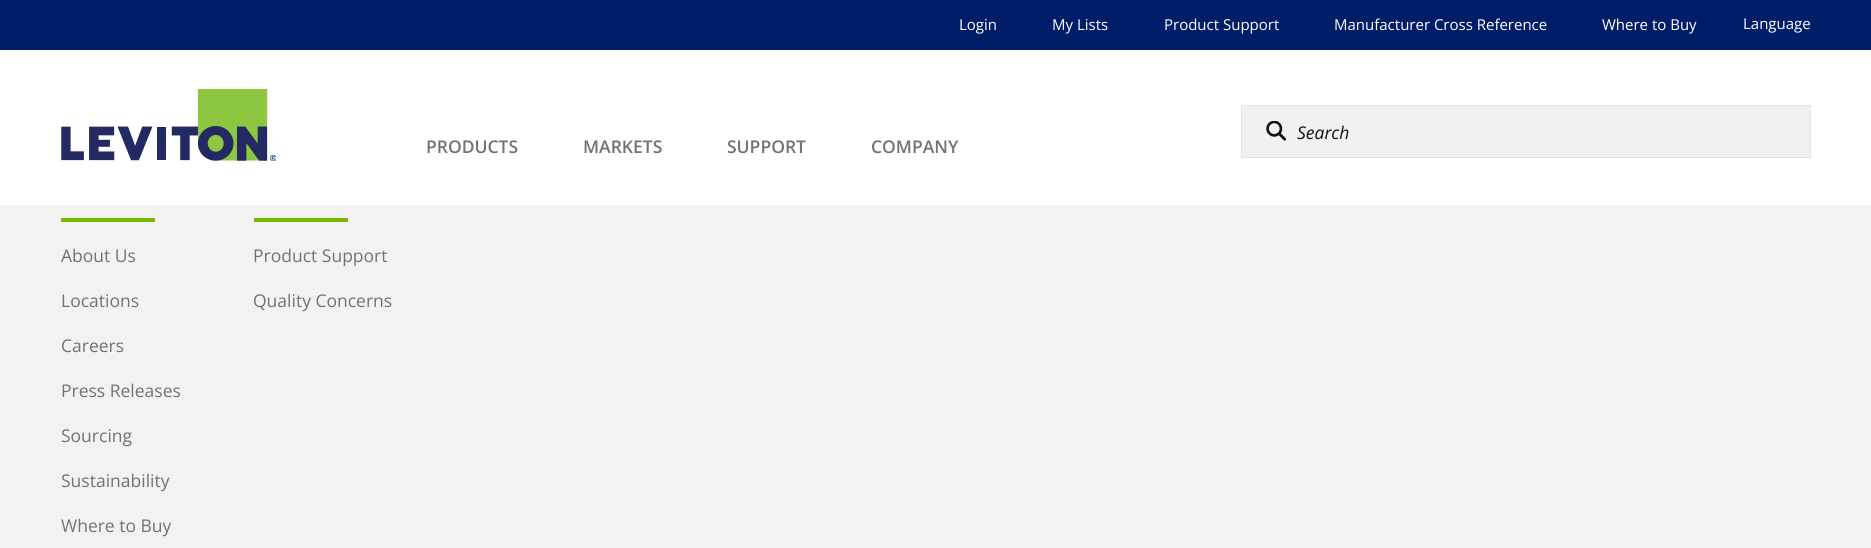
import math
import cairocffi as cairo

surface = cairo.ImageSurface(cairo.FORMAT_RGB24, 1871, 548)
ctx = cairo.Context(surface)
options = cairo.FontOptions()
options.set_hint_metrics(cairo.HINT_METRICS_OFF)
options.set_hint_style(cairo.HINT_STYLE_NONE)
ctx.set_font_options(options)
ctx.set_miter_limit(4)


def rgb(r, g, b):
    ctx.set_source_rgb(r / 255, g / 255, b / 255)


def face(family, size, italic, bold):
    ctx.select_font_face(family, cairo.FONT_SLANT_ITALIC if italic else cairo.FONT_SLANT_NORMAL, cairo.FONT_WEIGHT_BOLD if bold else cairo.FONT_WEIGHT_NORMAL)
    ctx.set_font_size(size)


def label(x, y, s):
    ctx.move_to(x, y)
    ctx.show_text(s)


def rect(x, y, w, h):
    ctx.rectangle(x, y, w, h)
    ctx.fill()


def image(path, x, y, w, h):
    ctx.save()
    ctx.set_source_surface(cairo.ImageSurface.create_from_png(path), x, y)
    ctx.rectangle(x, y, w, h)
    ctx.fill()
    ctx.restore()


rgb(242, 242, 242)
ctx.paint()
rgb(255, 255, 255)
rect(0, 50, 1871, 155)
rgb(0, 29, 104)
rect(0, 0, 1871, 50)
face('Open Sans', 15, 0, 0)
rgb(255, 255, 255)
label(959, 30, 'Login')
label(1052, 30, 'My Lists')
label(1164, 30, 'Product Support')
label(1334, 30, 'Manufacturer Cross Reference')
label(1602, 30, 'Where to Buy')
label(1743, 29, 'Language')
image('image0.png', 61, 89, 215, 72)
rgb(241, 241, 241)
ctx.rectangle(1241.5, 105.5, 569, 52)
ctx.fill_preserve()
rgb(228, 228, 229)
ctx.set_line_width(1)
ctx.stroke()
image('image1.png', 1266, 121, 20, 20)
face('Open Sans', 17.5, 1, 0)
rgb(17, 17, 17)
label(1297, 139, 'Search')
face('Open Sans SemiBold', 17.5, 0, 0)
rgb(112, 114, 118)
label(426, 153, 'PRODUCTS')
label(583, 153, 'MARKETS')
label(727, 153, 'SUPPORT')
label(871, 153, 'COMPANY')
rgb(118, 185, 0)
rect(61, 218, 94, 4)
face('Open Sans', 17.5, 0, 0)
rgb(112, 114, 118)
label(61, 262, 'About Us')
label(61, 307, 'Locations')
label(61, 352, 'Careers')
label(61, 397, 'Press Releases')
label(61, 442, 'Sourcing')
label(61, 487, 'Sustainability')
label(61, 532, 'Where to Buy')
rgb(118, 185, 0)
rect(254, 218, 94, 4)
rgb(112, 114, 118)
label(253, 262, 'Product Support')
label(253, 307, 'Quality Concerns')
surface.write_to_png('render.png')
